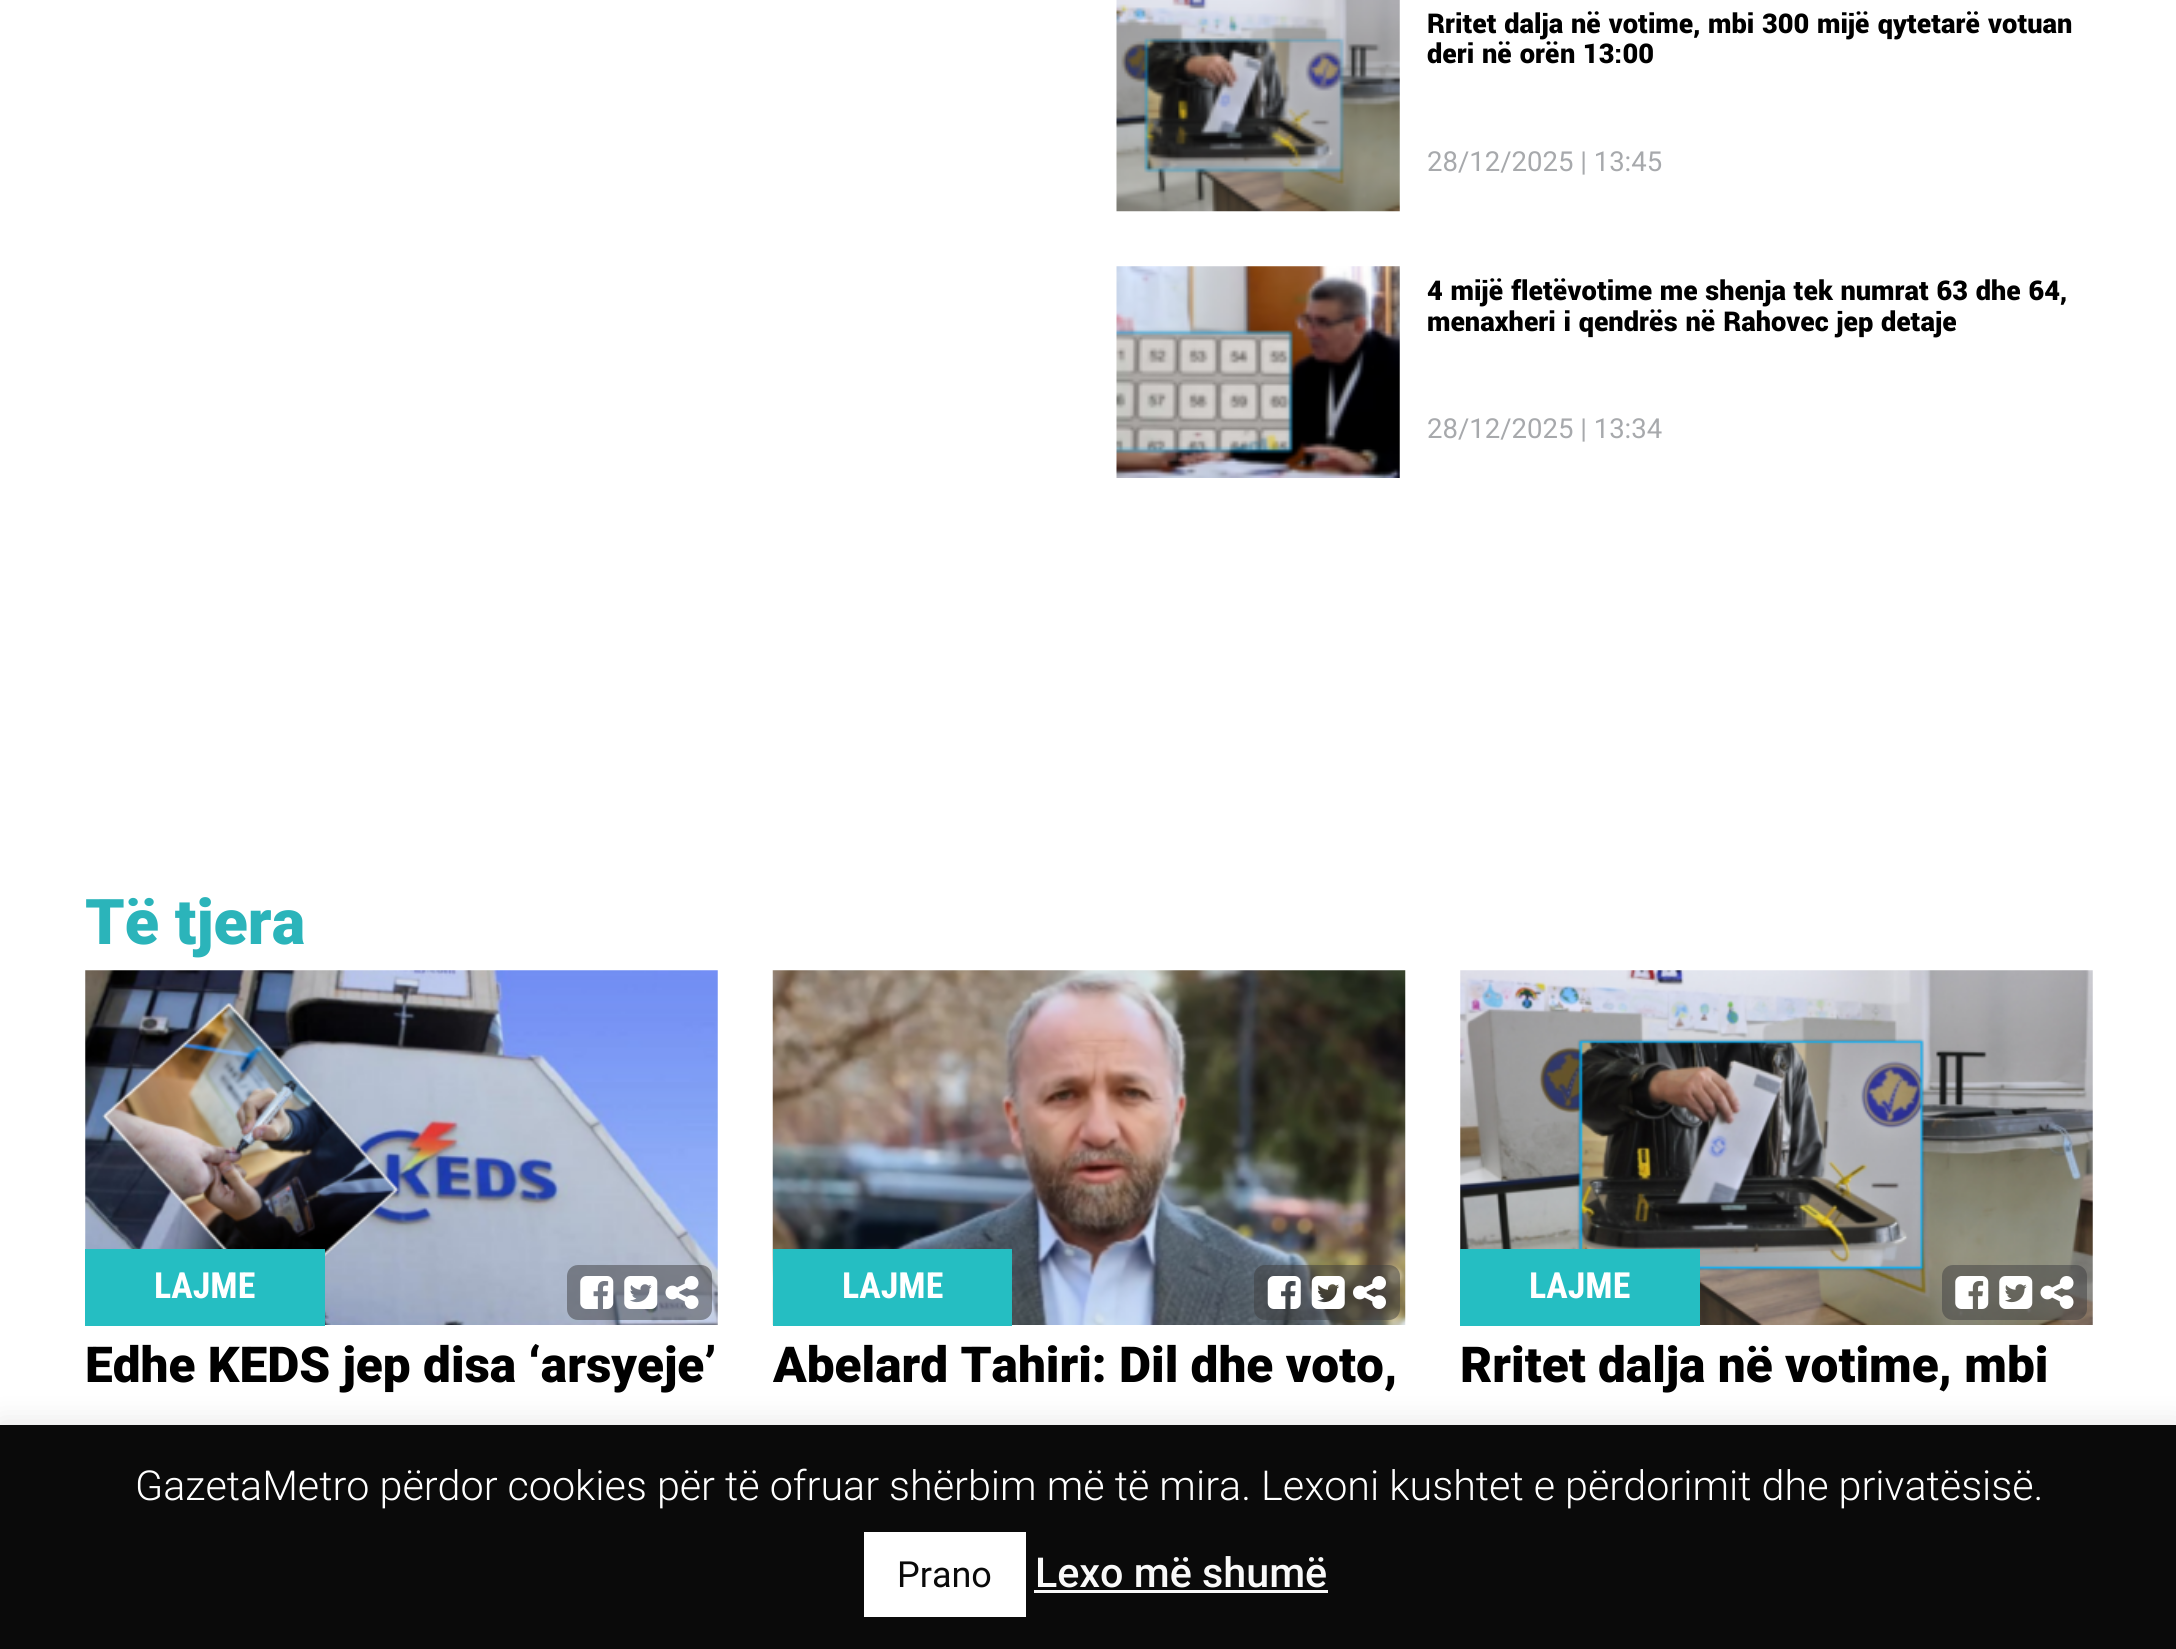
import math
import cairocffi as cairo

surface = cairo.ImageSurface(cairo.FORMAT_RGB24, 2176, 1649)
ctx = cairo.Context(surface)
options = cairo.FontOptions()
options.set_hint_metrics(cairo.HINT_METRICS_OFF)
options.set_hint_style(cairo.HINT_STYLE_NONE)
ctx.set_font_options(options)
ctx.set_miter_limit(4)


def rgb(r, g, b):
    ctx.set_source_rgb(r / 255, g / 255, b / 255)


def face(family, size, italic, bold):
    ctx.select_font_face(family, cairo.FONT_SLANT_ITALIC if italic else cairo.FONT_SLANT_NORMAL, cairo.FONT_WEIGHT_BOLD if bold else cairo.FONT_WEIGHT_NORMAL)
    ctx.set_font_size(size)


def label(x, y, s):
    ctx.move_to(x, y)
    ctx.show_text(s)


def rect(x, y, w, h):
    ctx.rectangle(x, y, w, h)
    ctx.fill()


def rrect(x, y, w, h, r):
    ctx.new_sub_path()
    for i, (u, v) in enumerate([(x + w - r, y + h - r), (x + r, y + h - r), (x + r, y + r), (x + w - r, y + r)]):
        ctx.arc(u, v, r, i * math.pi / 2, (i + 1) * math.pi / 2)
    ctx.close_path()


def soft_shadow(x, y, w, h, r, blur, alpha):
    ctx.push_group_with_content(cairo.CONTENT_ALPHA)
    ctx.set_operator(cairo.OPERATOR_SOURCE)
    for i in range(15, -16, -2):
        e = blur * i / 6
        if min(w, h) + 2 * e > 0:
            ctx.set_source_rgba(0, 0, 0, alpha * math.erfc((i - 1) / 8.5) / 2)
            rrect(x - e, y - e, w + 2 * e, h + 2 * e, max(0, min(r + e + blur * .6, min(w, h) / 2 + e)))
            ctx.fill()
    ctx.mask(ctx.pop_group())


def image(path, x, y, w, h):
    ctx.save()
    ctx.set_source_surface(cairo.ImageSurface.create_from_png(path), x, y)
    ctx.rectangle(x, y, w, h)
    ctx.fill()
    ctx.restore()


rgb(255, 255, 255)
ctx.paint()
image('image0.png', 1116, 0, 284, 212)
face('Yantramanav Black', 30.25, 0, 0)
rgb(0, 0, 0)
label(1427, 33, 'Rritet dalja në votime, mbi 300 mijë qytetarë votuan')
label(1427, 63, 'deri në orën 13:00')
face('Roboto', 27.5, 0, 0)
rgb(167, 169, 172)
label(1427, 171, '28/12/2025 | 13:45')
image('image1.png', 1116, 266, 284, 212)
face('Yantramanav Black', 30.25, 0, 0)
rgb(0, 0, 0)
label(1427, 300, '4 mijë fletëvotime me shenja tek numrat 63 dhe 64,')
label(1427, 331, 'menaxheri i qendrës në Rahovec jep detaje')
face('Roboto', 27.5, 0, 0)
rgb(167, 169, 172)
label(1427, 438, '28/12/2025 | 13:34')
face('Roboto Black', 63, 0, 0)
rgb(43, 180, 186)
label(85, 944, 'Të tjera')
image('image2.png', 85, 970, 633, 355)
rgb(37, 190, 194)
rect(85, 1249, 240, 77)
face('Roboto Condensed', 36, 0, 1)
rgb(255, 255, 255)
label(154, 1298, 'LAJME')
ctx.set_source_rgba(0.247, 0.243, 0.251, 0.5)
rrect(567, 1265, 145, 55, 11)
ctx.fill()
image('image3.png', 580, 1276, 34, 33)
image('image4.png', 624, 1276, 34, 33)
image('image5.png', 665, 1276, 34, 33)
face('Roboto Black', 49.5, 0, 0)
rgb(0, 0, 0)
label(85, 1382, 'Edhe KEDS jep disa ‘arsyeje’')
image('image6.png', 772, 970, 634, 355)
rgb(37, 190, 194)
rect(773, 1249, 239, 77)
face('Roboto Condensed', 36, 0, 1)
rgb(255, 255, 255)
label(842, 1298, 'LAJME')
ctx.set_source_rgba(0.247, 0.243, 0.251, 0.5)
rrect(1254, 1265, 146, 55, 11)
ctx.fill()
image('image7.png', 1267, 1276, 34, 33)
image('image8.png', 1311, 1276, 34, 33)
image('image9.png', 1353, 1276, 33, 33)
face('Roboto Black', 49.5, 0, 0)
rgb(0, 0, 0)
label(773, 1382, 'Abelard Tahiri: Dil dhe voto,')
image('image10.png', 1460, 970, 633, 355)
rgb(37, 190, 194)
rect(1460, 1249, 240, 77)
face('Roboto Condensed', 36, 0, 1)
rgb(255, 255, 255)
label(1529, 1298, 'LAJME')
ctx.set_source_rgba(0.247, 0.243, 0.251, 0.5)
rrect(1942, 1265, 145, 55, 11)
ctx.fill()
image('image11.png', 1955, 1276, 34, 33)
image('image12.png', 1999, 1276, 34, 33)
image('image13.png', 2040, 1276, 34, 33)
face('Roboto Black', 49.5, 0, 0)
rgb(0, 0, 0)
label(1460, 1382, 'Rritet dalja në votime, mbi')
rgb(172, 171, 171)
soft_shadow(0, 1422, 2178, 225, 0, 14, 0.3)
rgb(10, 10, 10)
rect(0, 1425, 2176, 224)
face('Roboto Light', 41.25, 0, 0)
rgb(255, 255, 255)
label(135, 1500, 'GazetaMetro përdor cookies për të ofruar shërbim më të mira. Lexoni kushtet e përdorimit dhe privatësisë.')
rect(864, 1532, 162, 85)
face('Roboto', 36, 0, 0)
rgb(10, 10, 10)
label(897, 1587, 'Prano')
face('Roboto Medium', 41.25, 0, 0)
rgb(249, 249, 249)
label(1035, 1587, 'Lexo më shumë')
rect(1034, 1590, 294, 3)
surface.write_to_png('render.png')
